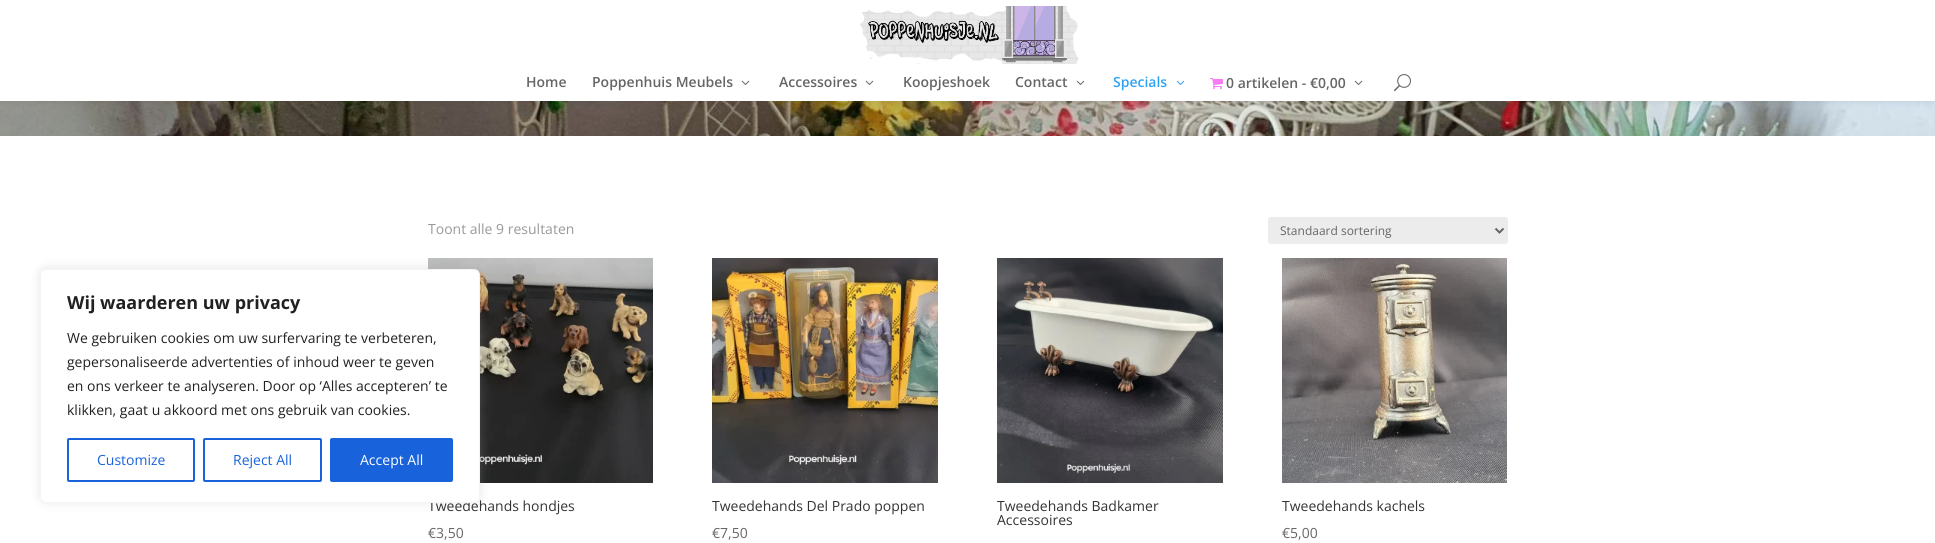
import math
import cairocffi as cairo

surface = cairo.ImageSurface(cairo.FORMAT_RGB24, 1935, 543)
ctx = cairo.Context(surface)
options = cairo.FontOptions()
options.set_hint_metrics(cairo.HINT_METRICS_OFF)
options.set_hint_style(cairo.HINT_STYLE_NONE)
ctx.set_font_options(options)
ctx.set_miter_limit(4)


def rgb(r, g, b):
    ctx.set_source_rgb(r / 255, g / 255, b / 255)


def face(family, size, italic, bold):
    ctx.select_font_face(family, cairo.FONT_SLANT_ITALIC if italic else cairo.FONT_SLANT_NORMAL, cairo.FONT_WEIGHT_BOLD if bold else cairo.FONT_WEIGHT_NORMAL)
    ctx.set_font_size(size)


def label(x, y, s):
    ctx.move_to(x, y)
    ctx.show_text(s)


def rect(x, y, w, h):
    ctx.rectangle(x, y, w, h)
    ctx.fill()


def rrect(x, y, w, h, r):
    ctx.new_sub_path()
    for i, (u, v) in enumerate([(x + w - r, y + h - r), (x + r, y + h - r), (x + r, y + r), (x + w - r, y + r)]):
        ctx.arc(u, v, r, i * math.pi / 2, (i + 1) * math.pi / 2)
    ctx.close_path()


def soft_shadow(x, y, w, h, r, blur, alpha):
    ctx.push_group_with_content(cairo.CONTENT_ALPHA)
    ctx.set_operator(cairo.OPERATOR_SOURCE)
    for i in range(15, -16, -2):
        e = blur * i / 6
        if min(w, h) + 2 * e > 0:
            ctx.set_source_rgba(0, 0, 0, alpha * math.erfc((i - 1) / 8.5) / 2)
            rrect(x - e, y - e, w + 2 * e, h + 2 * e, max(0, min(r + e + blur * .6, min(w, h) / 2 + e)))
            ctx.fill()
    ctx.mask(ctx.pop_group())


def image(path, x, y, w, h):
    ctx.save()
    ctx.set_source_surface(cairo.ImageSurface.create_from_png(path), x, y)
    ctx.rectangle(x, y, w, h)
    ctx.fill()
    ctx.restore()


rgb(255, 255, 255)
ctx.paint()
image('image6.png', 428, 258, 225, 225)
rgb(172, 171, 171)
soft_shadow(40, 268, 440, 234, 6, 5, 0.3)
face('Open Sans', 14, 0, 0)
rgb(51, 51, 51)
label(428, 511, 'Tweedehands hondjes')
rgb(255, 255, 255)
rrect(40.5, 269.5, 439, 233, 5.5)
ctx.fill_preserve()
rgb(244, 244, 244)
ctx.set_line_width(1)
ctx.stroke()
face('Open Sans', 18, 0, 1)
rgb(33, 33, 33)
label(67, 309, 'Wij waarderen uw privacy')
face('Open Sans', 14, 0, 0)
label(67, 343, 'We gebruiken cookies om uw surfervaring te verbeteren,')
label(67, 367, 'gepersonaliseerde advertenties of inhoud weer te geven')
label(67, 391, 'en ons verkeer te analyseren. Door op ‘Alles accepteren’ te')
label(67, 415, 'klikken, gaat u akkoord met ons gebruik van cookies.')
rrect(68, 439, 126, 42, 1)
rgb(24, 99, 220)
ctx.set_line_width(2)
ctx.stroke()
label(97, 465, 'Customize')
rrect(204, 439, 117, 42, 1)
ctx.stroke()
label(233, 465, 'Reject All')
rrect(331, 439, 121, 42, 1)
ctx.fill_preserve()
ctx.stroke()
rgb(255, 255, 255)
label(360, 465, 'Accept All')
image('image5.png', 0, 101, 1935, 35)
rgb(0, 0, 0)
soft_shadow(0, 0, 1935, 101, 0, 3.5, 0.1)
rgb(255, 255, 255)
rect(0, 0, 1935, 101)
image('image0.png', 858, 6, 221, 58)
face('Open Sans SemiBold', 14, 0, 0)
rgb(102, 102, 102)
label(526, 87, 'Home')
label(592, 87, 'Poppenhuis Meubels')
image('image1.png', 741, 80, 9, 5)
label(779, 87, 'Accessoires')
image('image1.png', 865, 80, 9, 5)
label(903, 87, 'Koopjeshoek')
label(1015, 87, 'Contact')
image('image1.png', 1076, 80, 9, 5)
rgb(46, 163, 242)
label(1113, 87, 'Specials')
image('image2.png', 1176, 80, 9, 5)
image('image3.png', 1210, 78, 13, 11)
rgb(102, 102, 102)
label(1226, 88, '0 artikelen - €0,00')
image('image1.png', 1354, 80, 9, 5)
image('image4.png', 1394, 74, 17, 18)
face('Open Sans', 14, 0, 0)
rgb(153, 153, 153)
label(428, 234, 'Toont alle 9 resultaten')
rgb(236, 236, 236)
rrect(1268, 217, 240, 27, 3)
ctx.fill()
ctx.new_path()
ctx.move_to(1495.5, 228.5)
ctx.line_to(1499.5, 232.5)
ctx.line_to(1503.5, 228.5)
rgb(102, 102, 102)
ctx.stroke()
face('Open Sans', 12, 0, 0)
label(1280, 235, 'Standaard sortering')
face('Open Sans', 14, 0, 0)
label(428, 538, '€3,50')
image('image7.png', 712, 258, 226, 225)
rgb(51, 51, 51)
label(712, 511, 'Tweedehands Del Prado poppen')
rgb(102, 102, 102)
label(712, 538, '€7,50')
image('image8.png', 997, 258, 226, 225)
rgb(51, 51, 51)
label(997, 511, 'Tweedehands Badkamer')
label(997, 525, 'Accessoires')
image('image9.png', 1282, 258, 225, 225)
label(1282, 511, 'Tweedehands kachels')
rgb(102, 102, 102)
label(1282, 538, '€5,00')
surface.write_to_png('render.png')
